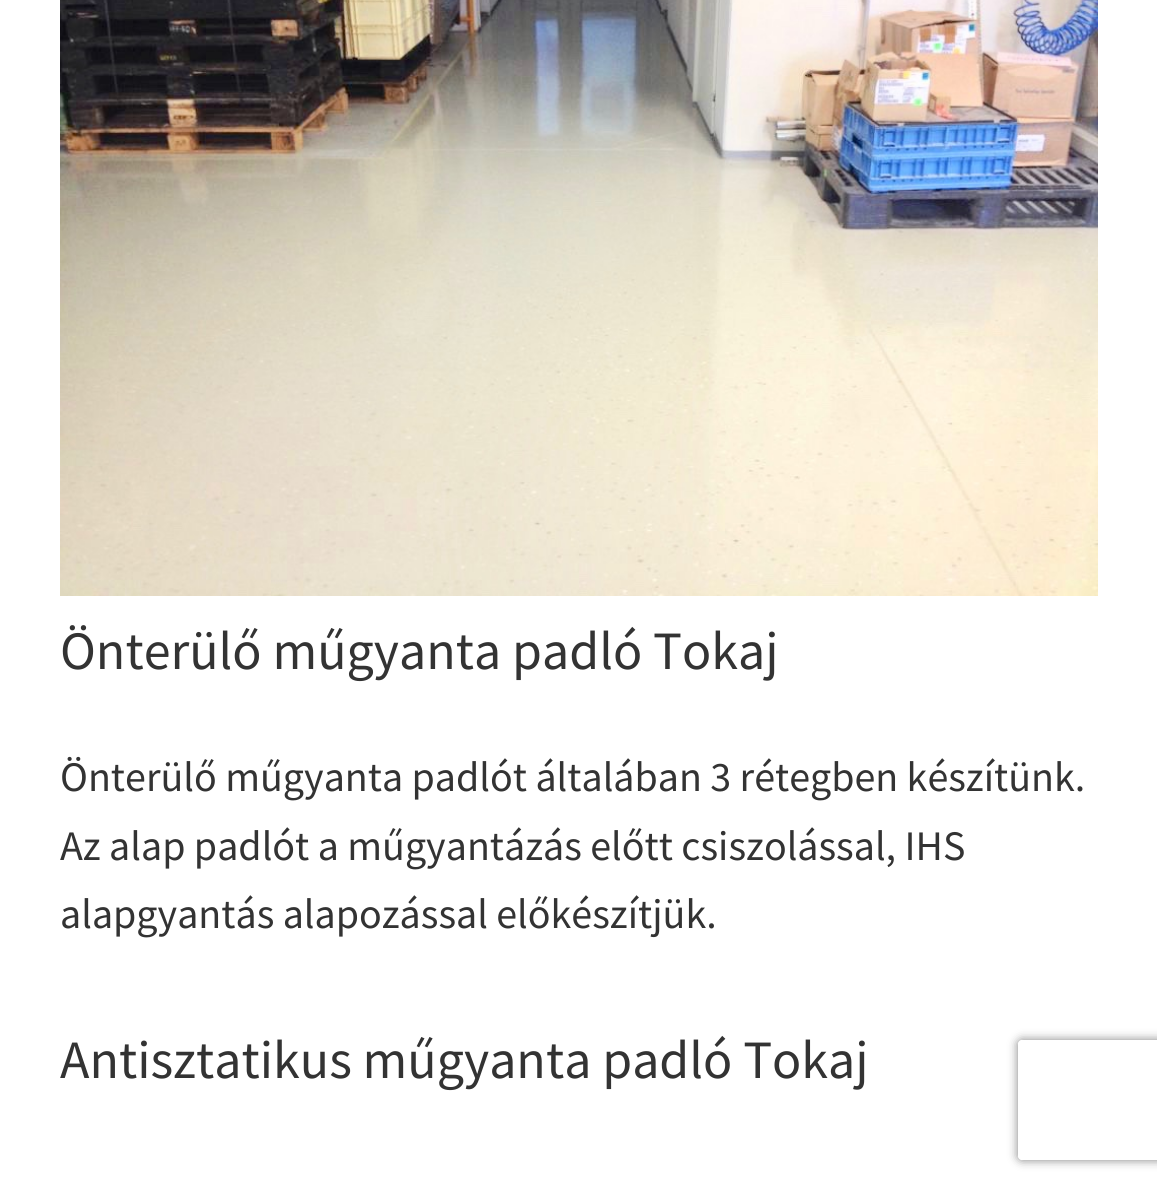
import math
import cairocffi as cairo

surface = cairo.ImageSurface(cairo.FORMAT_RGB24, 1157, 1188)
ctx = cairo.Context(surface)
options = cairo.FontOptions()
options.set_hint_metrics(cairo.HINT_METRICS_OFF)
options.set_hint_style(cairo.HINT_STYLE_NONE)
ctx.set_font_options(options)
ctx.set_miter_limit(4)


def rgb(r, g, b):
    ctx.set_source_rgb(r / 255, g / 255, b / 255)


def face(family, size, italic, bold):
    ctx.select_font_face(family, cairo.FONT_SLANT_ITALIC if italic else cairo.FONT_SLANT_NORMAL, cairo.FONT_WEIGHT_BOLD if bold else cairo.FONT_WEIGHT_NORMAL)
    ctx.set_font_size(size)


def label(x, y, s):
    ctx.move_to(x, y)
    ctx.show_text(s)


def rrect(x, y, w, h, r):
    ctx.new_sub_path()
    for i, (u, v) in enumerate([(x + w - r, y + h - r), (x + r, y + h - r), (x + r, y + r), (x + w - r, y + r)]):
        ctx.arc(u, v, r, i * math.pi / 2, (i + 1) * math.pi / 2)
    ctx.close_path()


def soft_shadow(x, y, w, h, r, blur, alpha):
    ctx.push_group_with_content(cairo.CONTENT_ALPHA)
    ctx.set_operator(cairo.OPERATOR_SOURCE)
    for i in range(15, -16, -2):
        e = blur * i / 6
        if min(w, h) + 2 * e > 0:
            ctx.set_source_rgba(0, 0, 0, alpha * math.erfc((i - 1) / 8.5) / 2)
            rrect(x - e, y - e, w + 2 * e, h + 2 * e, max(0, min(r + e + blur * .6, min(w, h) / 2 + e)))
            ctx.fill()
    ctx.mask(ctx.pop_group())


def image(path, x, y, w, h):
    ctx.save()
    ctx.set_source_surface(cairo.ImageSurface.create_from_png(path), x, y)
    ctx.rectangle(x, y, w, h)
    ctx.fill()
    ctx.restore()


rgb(255, 255, 255)
ctx.paint()
image('image0.png', 60, 0, 1038, 596)
face('Source Sans Pro', 54, 0, 0)
rgb(51, 51, 51)
label(60, 669, 'Önterülő műgyanta padló Tokaj')
face('Source Sans Pro', 42, 0, 0)
label(60, 791, 'Önterülő műgyanta padlót általában 3 rétegben készítünk.')
label(60, 860, 'Az alap padlót a műgyantázás előtt csiszolással, IHS')
label(60, 928, 'alapgyantás alapozással előkészítjük.')
face('Source Sans Pro', 54, 0, 0)
label(60, 1078, 'Antisztatikus műgyanta padló Tokaj')
ctx.save()
ctx.set_fill_rule(cairo.FILL_RULE_EVEN_ODD)
ctx.new_path()
ctx.move_to(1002, 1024)
ctx.line_to(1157, 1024)
ctx.line_to(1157, 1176)
ctx.line_to(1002, 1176)
ctx.close_path()
ctx.move_to(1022, 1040)
ctx.line_to(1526, 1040)
ctx.curve_to(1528, 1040, 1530, 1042, 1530, 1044)
ctx.line_to(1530, 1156)
ctx.curve_to(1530, 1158, 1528, 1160, 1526, 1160)
ctx.line_to(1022, 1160)
ctx.curve_to(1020, 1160, 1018, 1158, 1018, 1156)
ctx.line_to(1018, 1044)
ctx.curve_to(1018, 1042, 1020, 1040, 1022, 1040)
ctx.close_path()
ctx.clip()
rgb(128, 128, 128)
soft_shadow(1018, 1040, 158, 120, 4, 5, 1)
ctx.restore()
surface.write_to_png('render.png')
